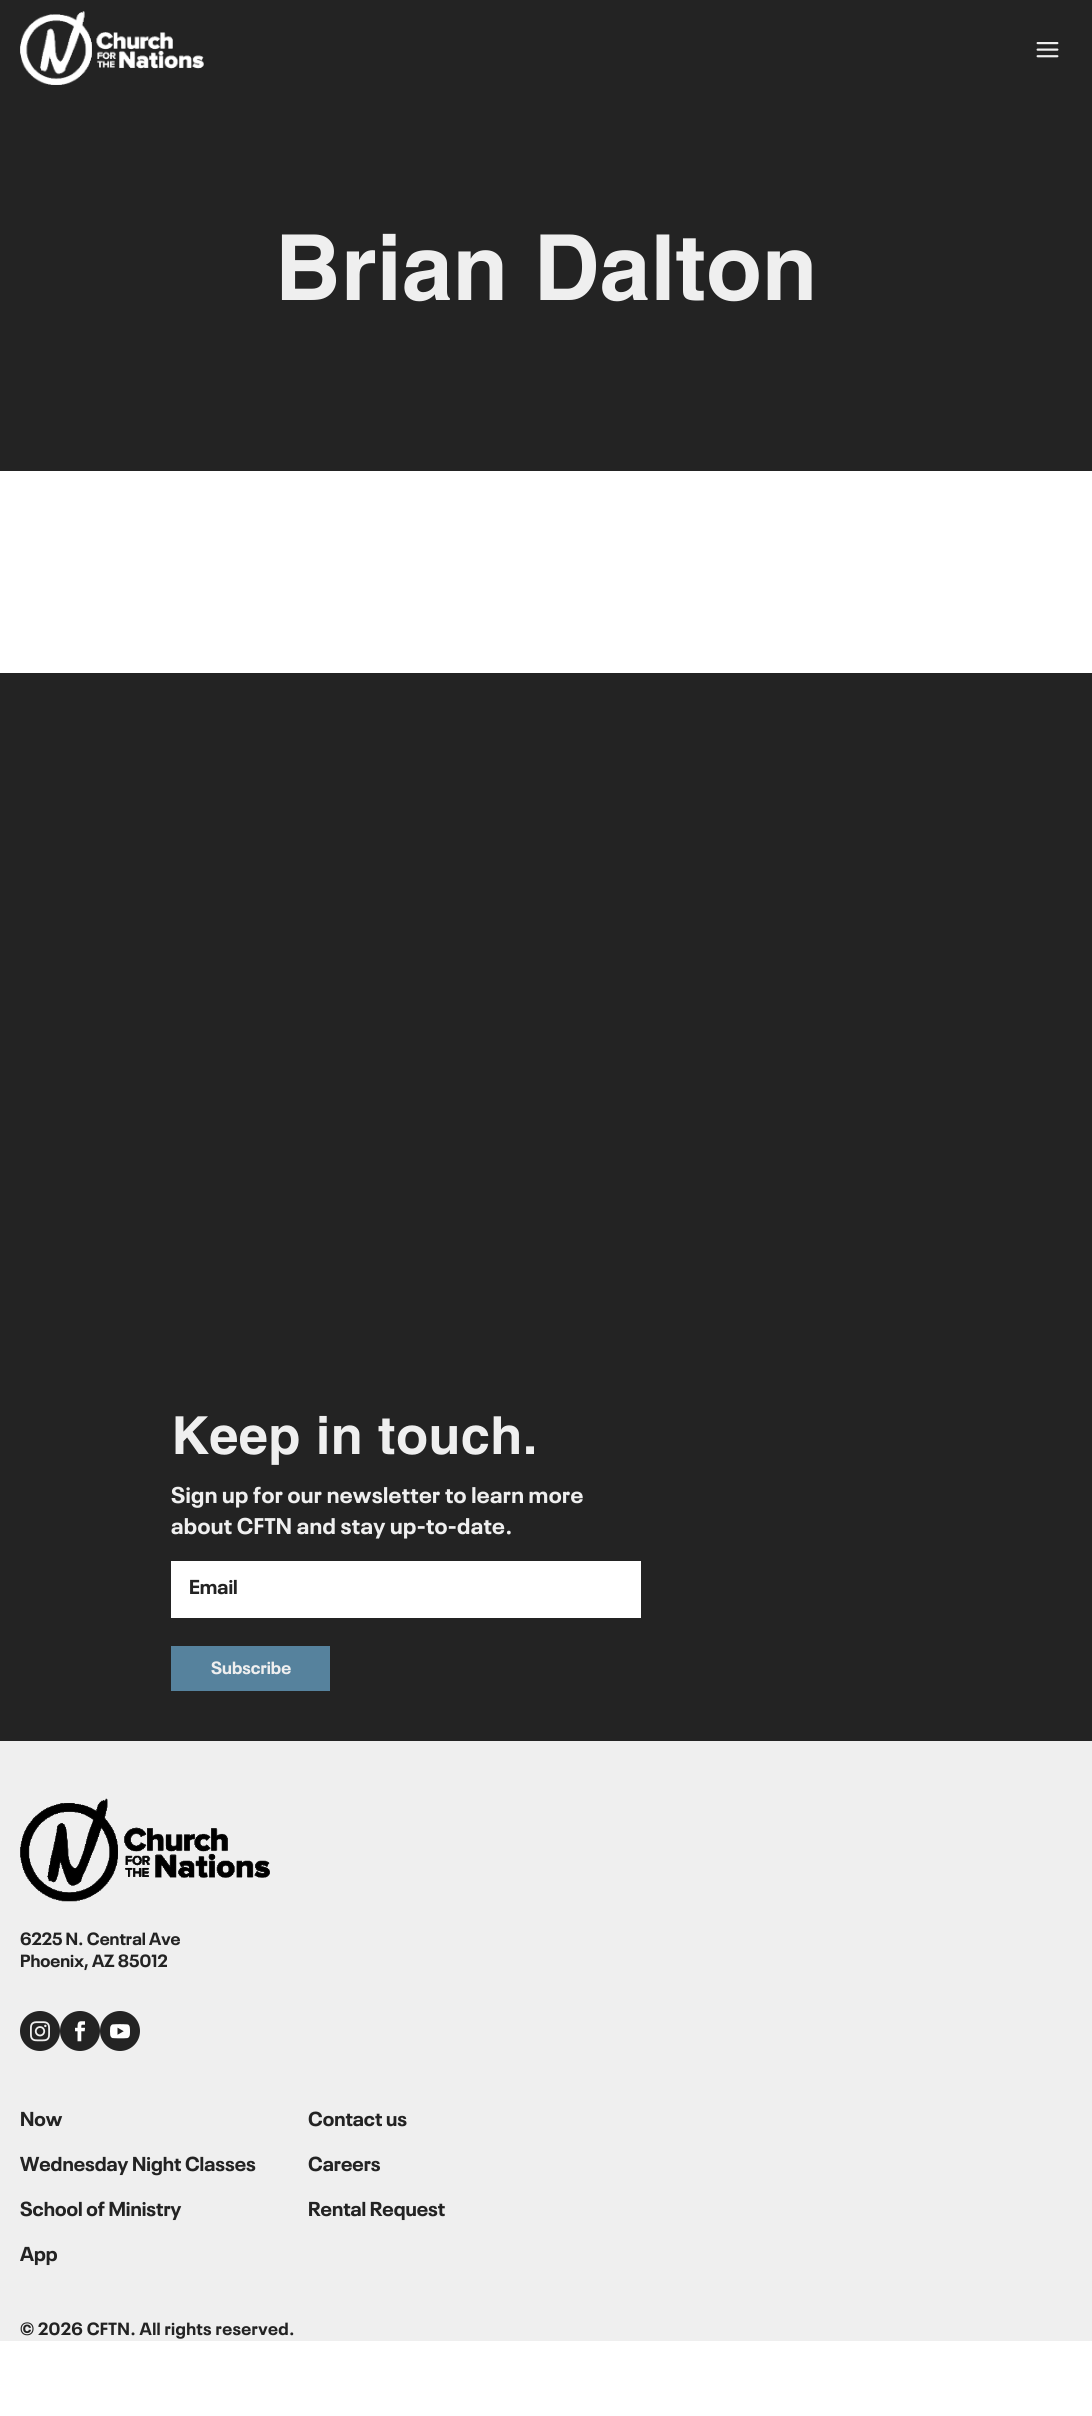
import math
import cairocffi as cairo

surface = cairo.ImageSurface(cairo.FORMAT_RGB24, 1092, 2416)
ctx = cairo.Context(surface)
options = cairo.FontOptions()
options.set_hint_metrics(cairo.HINT_METRICS_OFF)
options.set_hint_style(cairo.HINT_STYLE_NONE)
ctx.set_font_options(options)
ctx.set_miter_limit(4)


def rgb(r, g, b):
    ctx.set_source_rgb(r / 255, g / 255, b / 255)


def face(family, size, italic, bold):
    ctx.select_font_face(family, cairo.FONT_SLANT_ITALIC if italic else cairo.FONT_SLANT_NORMAL, cairo.FONT_WEIGHT_BOLD if bold else cairo.FONT_WEIGHT_NORMAL)
    ctx.set_font_size(size)


def label(x, y, s):
    ctx.move_to(x, y)
    ctx.show_text(s)


def tracked(x, y, s, letter, word):
    ctx.move_to(x, y)
    for ch in s:
        ctx.show_text(ch)
        ctx.rel_move_to(letter + word * (ch == ' '), 0)


def rect(x, y, w, h):
    ctx.rectangle(x, y, w, h)
    ctx.fill()


def image(path, x, y, w, h):
    ctx.save()
    ctx.set_source_surface(cairo.ImageSurface.create_from_png(path), x, y)
    ctx.rectangle(x, y, w, h)
    ctx.fill()
    ctx.restore()


rgb(255, 255, 255)
ctx.paint()
rgb(239, 239, 239)
rect(0, 1741, 1092, 600)
rgb(35, 35, 35)
rect(0, 0, 1092, 471)
image('image0.png', 20, 11, 184, 74)
image('image1.png', 1036, 42, 23, 16)
face('Helvetica', 91.25, 0, 1)
rgb(239, 239, 239)
label(275, 300, 'Brian Dalton')
rgb(35, 35, 35)
rect(0, 673, 1092, 1068)
face('Helvetica', 52.5, 0, 1)
rgb(239, 239, 239)
tracked(171, 1454, 'Keep in touch.', 0.35, 0)
face('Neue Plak', 22.5, 0, 1)
tracked(171, 1503, 'Sign up for our newsletter to learn more', 0.35, 0)
tracked(171, 1534, 'about CFTN and stay up-to-date.', 0.35, 0)
rgb(255, 255, 255)
rect(171, 1561, 470, 57)
face('Neue Plak', 20, 0, 1)
rgb(35, 35, 35)
label(189, 1594, 'Email')
rgb(86, 130, 157)
rect(171, 1646, 159, 45)
face('Neue Plak', 17.5, 0, 1)
rgb(239, 239, 239)
label(211, 1674, 'Subscribe')
image('image2.png', 20, 1798, 250, 104)
rgb(35, 35, 35)
label(20, 1945, '6225 N. Central Ave')
label(20, 1967, 'Phoenix, AZ 85012')
ctx.new_path()
ctx.arc(40, 2031, 20, 0, 2 * math.pi)
ctx.fill()
image('image3.png', 30, 2021, 20, 21)
ctx.arc(80, 2031, 20, 0, 2 * math.pi)
ctx.fill()
image('image4.png', 75, 2021, 10, 21)
ctx.arc(120, 2031, 20, 0, 2 * math.pi)
ctx.fill()
image('image5.png', 110, 2024, 20, 15)
face('Neue Plak', 20, 0, 1)
label(20, 2126, 'Now')
label(308, 2126, 'Contact us')
label(20, 2171, 'Wednesday Night Classes')
label(308, 2171, 'Careers')
label(20, 2216, 'School of Ministry')
label(308, 2216, 'Rental Request')
label(20, 2261, 'App')
face('Neue Plak', 17.5, 0, 1)
tracked(20, 2335, '© 2026 CFTN. All rights reserved.', 0.35, 0)
surface.write_to_png('render.png')
